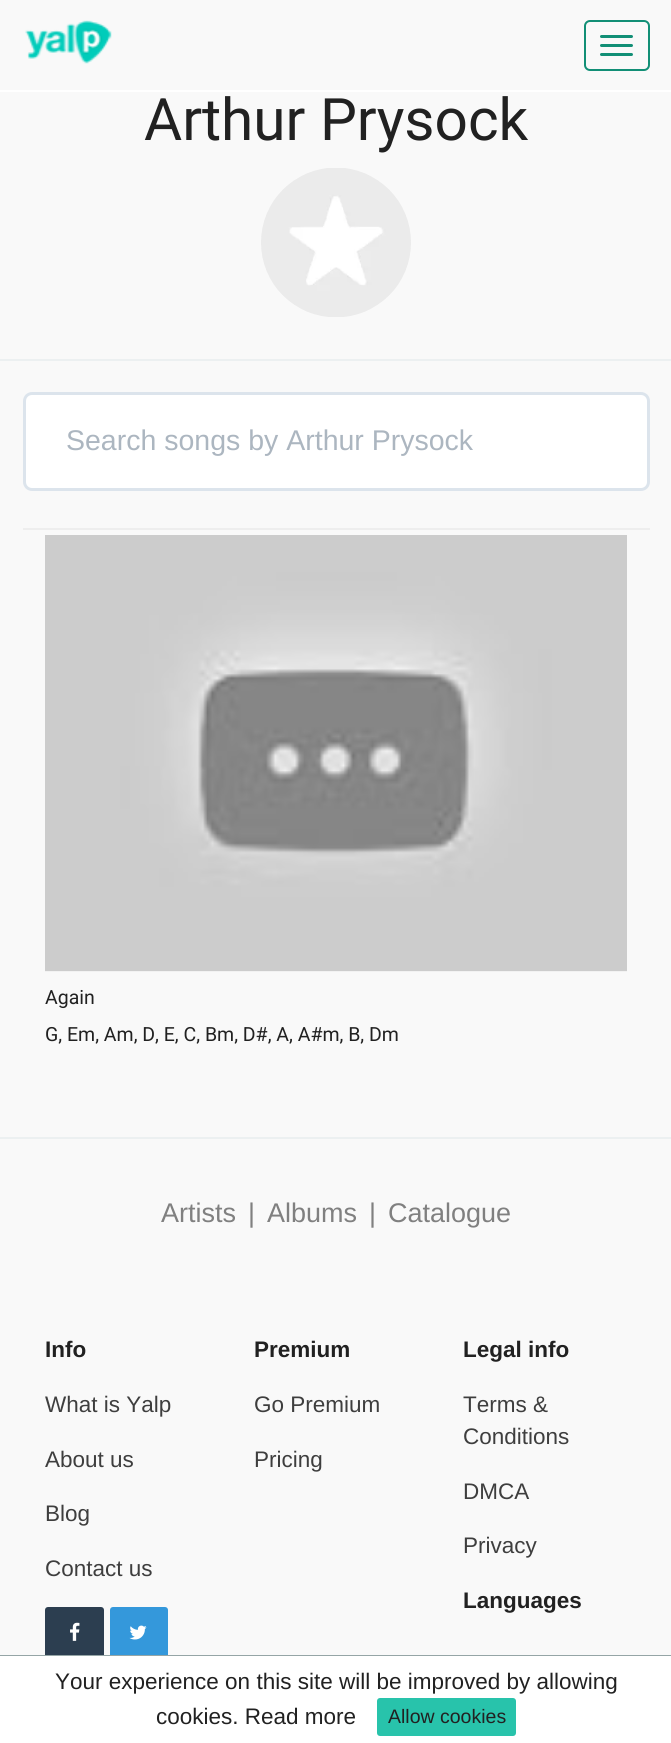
import math
import cairocffi as cairo

surface = cairo.ImageSurface(cairo.FORMAT_RGB24, 671, 1743)
ctx = cairo.Context(surface)
options = cairo.FontOptions()
options.set_hint_metrics(cairo.HINT_METRICS_OFF)
options.set_hint_style(cairo.HINT_STYLE_NONE)
ctx.set_font_options(options)
ctx.set_miter_limit(4)


def rgb(r, g, b):
    ctx.set_source_rgb(r / 255, g / 255, b / 255)


def face(family, size, italic, bold):
    ctx.select_font_face(family, cairo.FONT_SLANT_ITALIC if italic else cairo.FONT_SLANT_NORMAL, cairo.FONT_WEIGHT_BOLD if bold else cairo.FONT_WEIGHT_NORMAL)
    ctx.set_font_size(size)


def label(x, y, s):
    ctx.move_to(x, y)
    ctx.show_text(s)


def rect(x, y, w, h):
    ctx.rectangle(x, y, w, h)
    ctx.fill()


def rrect(x, y, w, h, r):
    ctx.new_sub_path()
    for i, (u, v) in enumerate([(x + w - r, y + h - r), (x + r, y + h - r), (x + r, y + r), (x + w - r, y + r)]):
        ctx.arc(u, v, r, i * math.pi / 2, (i + 1) * math.pi / 2)
    ctx.close_path()


def image(path, x, y, w, h):
    ctx.save()
    ctx.set_source_surface(cairo.ImageSurface.create_from_png(path), x, y)
    ctx.rectangle(x, y, w, h)
    ctx.fill()
    ctx.restore()


rgb(249, 249, 249)
ctx.paint()
face('Roboto', 58.5, 0, 0)
rgb(33, 33, 33)
label(144, 140, 'Arthur Prysock')
image('image0.png', 261, 168, 150, 149)
rgb(236, 240, 241)
rect(0, 359, 671, 2)
rgb(255, 255, 255)
rrect(24.5, 393.5, 624, 96, 7.5)
ctx.fill_preserve()
rgb(220, 228, 236)
ctx.set_line_width(3)
ctx.stroke()
face('Liberation Sans', 28.5, 0, 0)
rgb(172, 182, 192)
label(66, 450, 'Search songs by Arthur Prysock')
rgb(238, 238, 238)
rect(23, 528, 627, 2)
rgb(255, 255, 255)
rect(45, 971, 582, 1)
image('image1.png', 45, 535, 582, 437)
face('Roboto', 19.5, 0, 0)
rgb(33, 33, 33)
label(45, 1004, 'Again')
label(45, 1041, 'G, Em, Am, D, E, C, Bm, D#, A, A#m, B, Dm')
rgb(236, 240, 241)
rect(0, 1137, 671, 2)
face('Liberation Sans', 27, 0, 0)
rgb(128, 128, 128)
label(161, 1222, 'Artists')
label(248, 1222, '|')
label(267, 1222, 'Albums')
label(369, 1222, '|')
label(388, 1222, 'Catalogue')
face('Liberation Sans', 22.5, 0, 1)
rgb(33, 33, 33)
label(45, 1357, 'Info')
face('Liberation Sans', 22.5, 0, 0)
rgb(62, 62, 62)
label(45, 1412, 'What is Yalp')
label(45, 1467, 'About us')
label(45, 1521, 'Blog')
label(45, 1576, 'Contact us')
rgb(44, 62, 80)
rrect(46.5, 1608.5, 56, 51, 1.5)
ctx.fill_preserve()
ctx.stroke()
image('image2.png', 70, 1622, 10, 19)
rgb(52, 152, 219)
rrect(111.5, 1608.5, 55, 51, 1.5)
ctx.fill_preserve()
ctx.stroke()
image('image3.png', 129, 1625, 18, 15)
face('Liberation Sans', 22.5, 0, 1)
rgb(33, 33, 33)
label(254, 1357, 'Premium')
face('Liberation Sans', 22.5, 0, 0)
rgb(62, 62, 62)
label(254, 1412, 'Go Premium')
label(254, 1467, 'Pricing')
face('Liberation Sans', 22.5, 0, 1)
rgb(33, 33, 33)
label(463, 1357, 'Legal info')
face('Liberation Sans', 22.5, 0, 0)
rgb(62, 62, 62)
label(463, 1412, 'Terms &')
label(463, 1444, 'Conditions')
label(463, 1499, 'DMCA')
label(463, 1553, 'Privacy')
face('Liberation Sans', 22.5, 0, 1)
rgb(33, 33, 33)
label(463, 1608, 'Languages')
rgb(255, 255, 255)
rect(0, 90, 671, 2)
image('image4.png', 25, 20, 87, 44)
rrect(585, 21, 64, 49, 5)
rgb(18, 143, 118)
ctx.set_line_width(2)
ctx.stroke()
rrect(600, 35, 33, 3, 1.5)
ctx.fill()
rrect(600, 44, 33, 3, 1.5)
ctx.fill()
rrect(600, 53, 33, 3, 1.5)
ctx.fill()
rgb(149, 165, 166)
rect(0, 1655, 671, 1)
rgb(255, 255, 255)
rect(0, 1656, 671, 87)
face('Liberation Sans', 22.5, 0, 0)
rgb(33, 33, 33)
label(55, 1689, 'Your experience on this site will be improved by allowing')
label(156, 1724, 'cookies. Read more')
rgb(40, 195, 171)
rrect(378.5, 1699.5, 136, 35, 1.5)
ctx.fill_preserve()
ctx.set_line_width(3)
ctx.stroke()
face('Liberation Sans', 19.5, 0, 0)
rgb(33, 33, 33)
label(388, 1723, 'Allow cookies')
surface.write_to_png('render.png')
